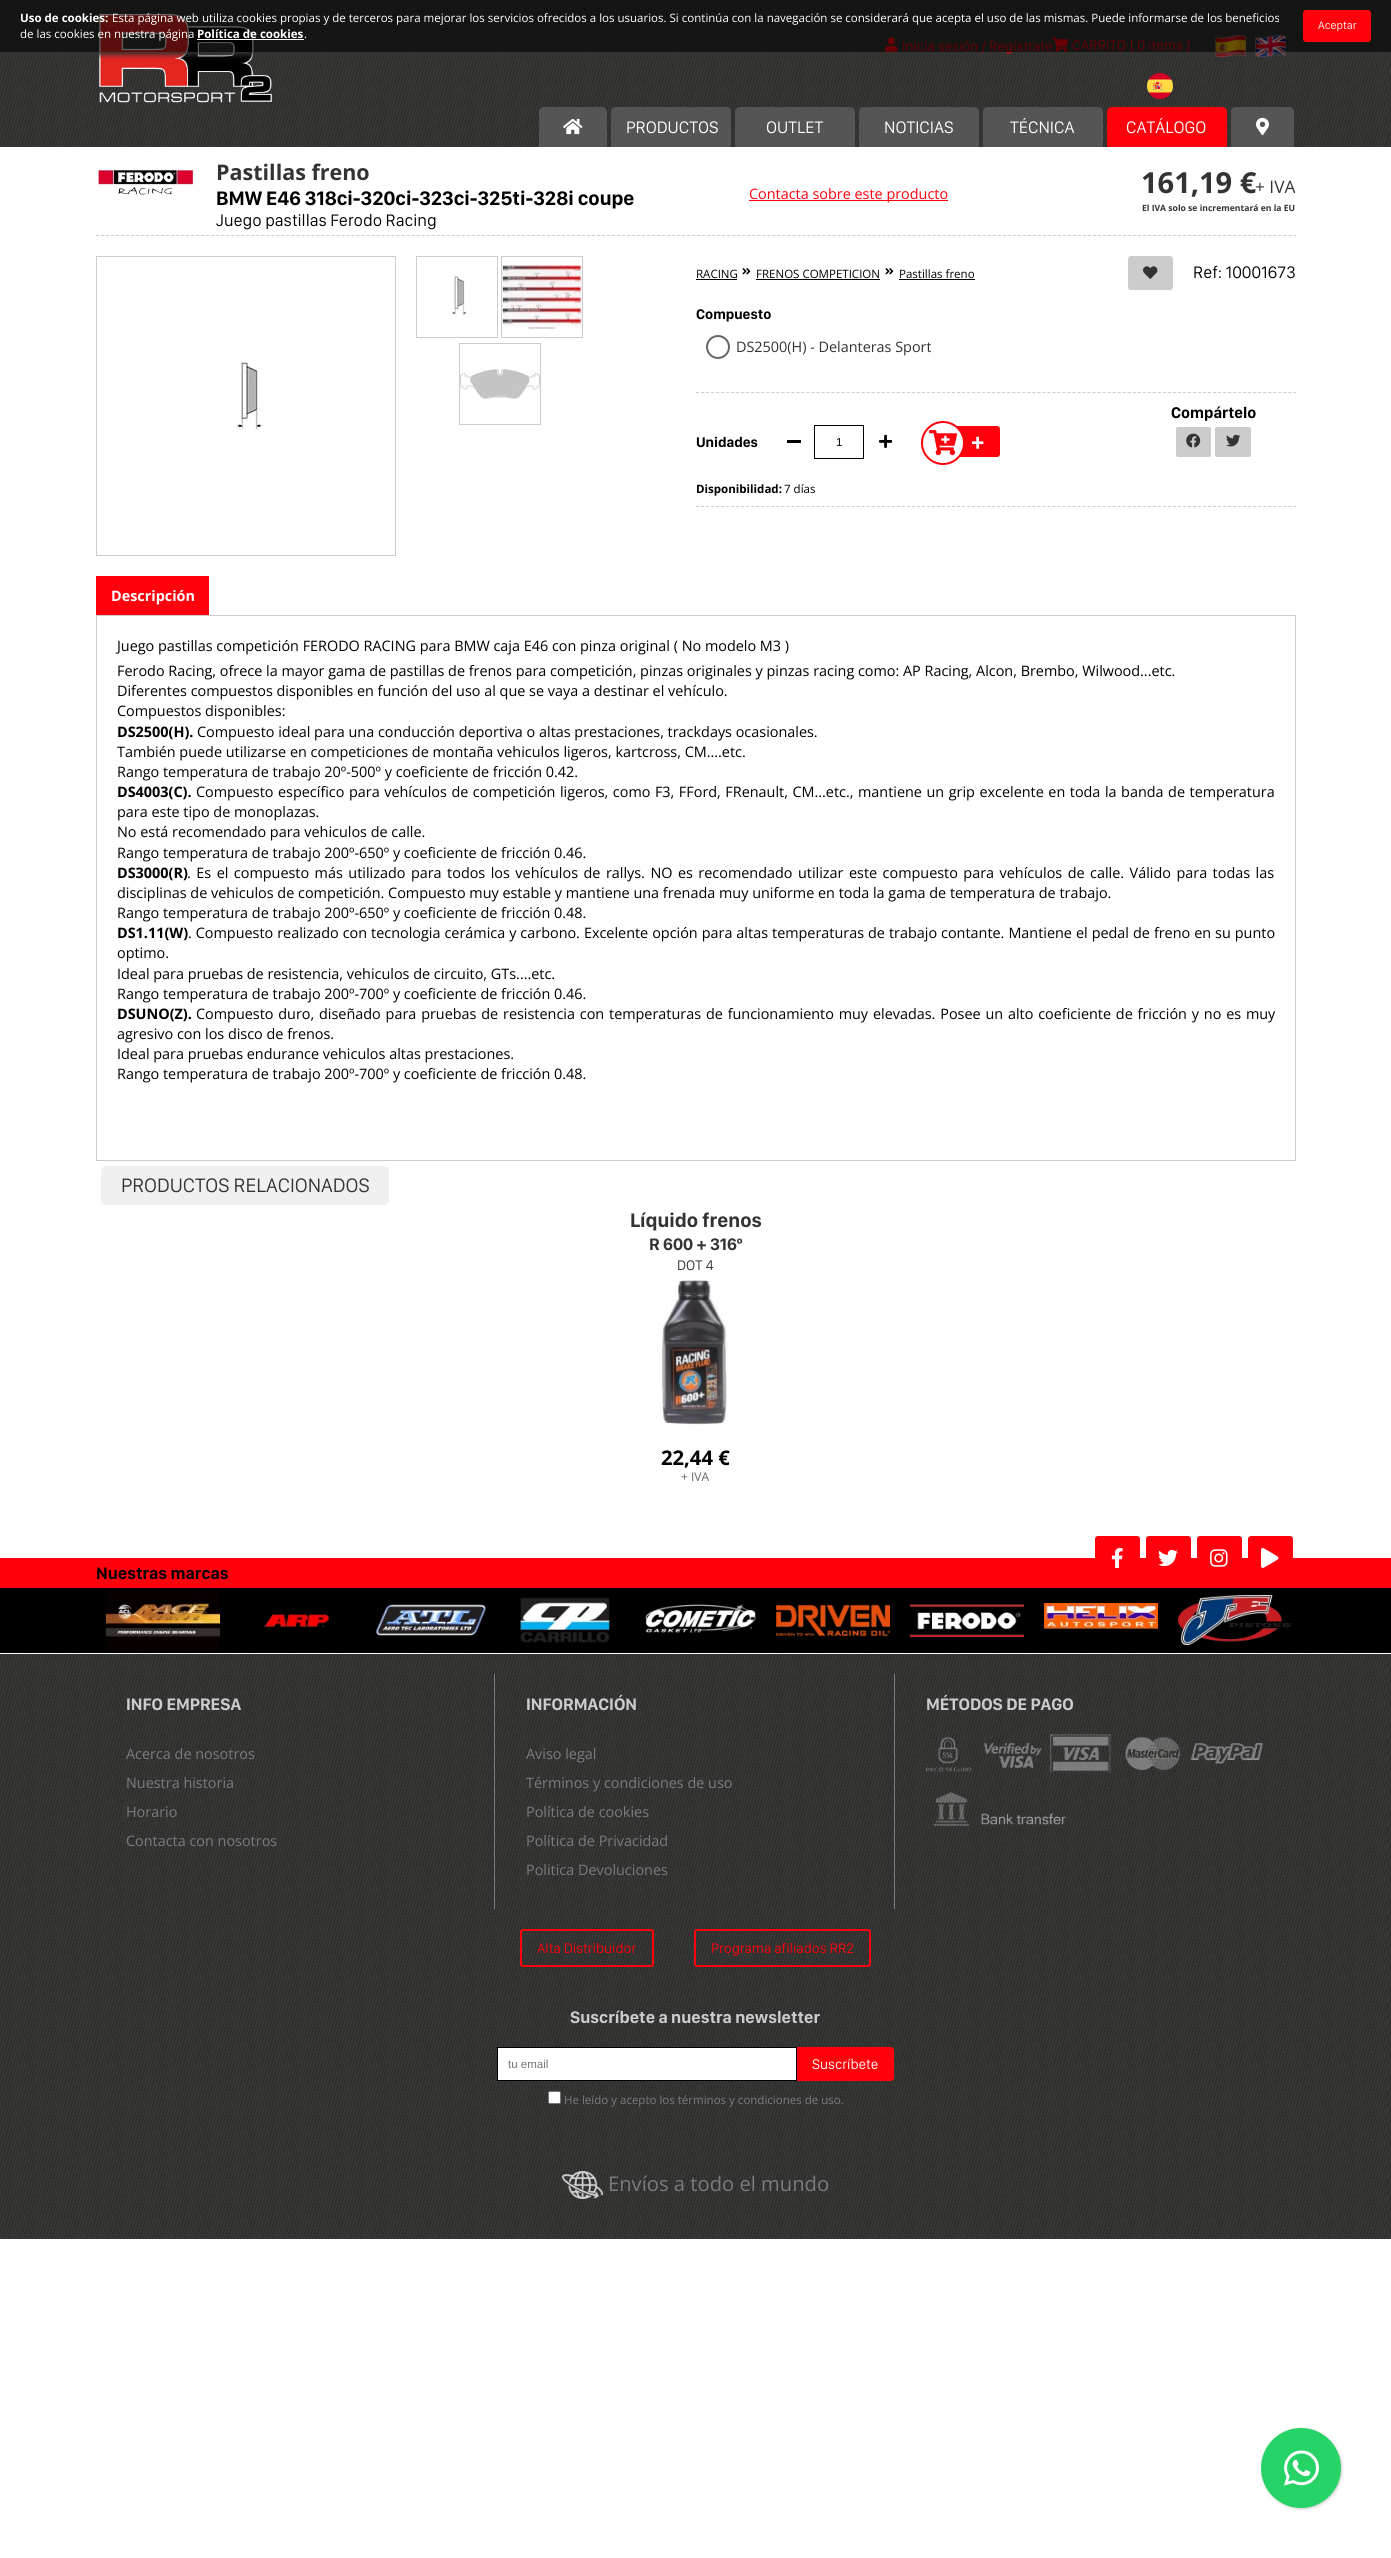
import math
import cairocffi as cairo

surface = cairo.ImageSurface(cairo.FORMAT_RGB24, 1391, 2558)
ctx = cairo.Context(surface)
options = cairo.FontOptions()
options.set_hint_metrics(cairo.HINT_METRICS_OFF)
options.set_hint_style(cairo.HINT_STYLE_NONE)
ctx.set_font_options(options)
ctx.set_miter_limit(4)


def rgb(r, g, b):
    ctx.set_source_rgb(r / 255, g / 255, b / 255)


def face(family, size, italic, bold):
    ctx.select_font_face(family, cairo.FONT_SLANT_ITALIC if italic else cairo.FONT_SLANT_NORMAL, cairo.FONT_WEIGHT_BOLD if bold else cairo.FONT_WEIGHT_NORMAL)
    ctx.set_font_size(size)


def label(x, y, s):
    ctx.move_to(x, y)
    ctx.show_text(s)


def tracked(x, y, s, letter, word):
    ctx.move_to(x, y)
    for ch in s:
        ctx.show_text(ch)
        ctx.rel_move_to(letter + word * (ch == ' '), 0)


def rect(x, y, w, h):
    ctx.rectangle(x, y, w, h)
    ctx.fill()


def rrect(x, y, w, h, r):
    ctx.new_sub_path()
    for i, (u, v) in enumerate([(x + w - r, y + h - r), (x + r, y + h - r), (x + r, y + r), (x + w - r, y + r)]):
        ctx.arc(u, v, r, i * math.pi / 2, (i + 1) * math.pi / 2)
    ctx.close_path()


def soft_shadow(x, y, w, h, r, blur, alpha):
    ctx.push_group_with_content(cairo.CONTENT_ALPHA)
    ctx.set_operator(cairo.OPERATOR_SOURCE)
    for i in range(15, -16, -2):
        e = blur * i / 6
        if min(w, h) + 2 * e > 0:
            ctx.set_source_rgba(0, 0, 0, alpha * math.erfc((i - 1) / 8.5) / 2)
            rrect(x - e, y - e, w + 2 * e, h + 2 * e, max(0, min(r + e + blur * .6, min(w, h) / 2 + e)))
            ctx.fill()
    ctx.mask(ctx.pop_group())


def image(path, x, y, w, h):
    ctx.save()
    ctx.set_source_surface(cairo.ImageSurface.create_from_png(path), x, y)
    ctx.rectangle(x, y, w, h)
    ctx.fill()
    ctx.restore()


rgb(255, 255, 255)
ctx.paint()
rgb(60, 60, 58)
rect(0, 0, 1391, 147)
image('image0.png', 0, 0, 1391, 147)
image('image1.png', 99, 13, 174, 90)
image('image2.png', 885, 37, 13, 15)
image('image3.png', 1052, 37, 17, 15)
image('image4.png', 1215, 35, 31, 22)
image('image5.png', 1255, 35, 31, 22)
ctx.save()
ctx.rectangle(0, 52, 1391, 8)
ctx.clip()
rgb(51, 51, 51)
soft_shadow(0, 3, 1391, 52, 0, 2.5, 1)
ctx.restore()
face('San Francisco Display', 14.4, 0, 0)
rgb(255, 1, 12)
label(902, 51, 'Inicia sesión / Regístrate')
label(1072, 50, 'CARRITO')
label(1130, 50, '[ 0 items ]')
ctx.set_source_rgba(0, 0, 0, 0.6)
rect(0, 0, 1391, 52)
face('Open Sans', 11.52, 0, 1)
rgb(255, 255, 255)
label(20, 22, 'Uso de cookies:')
face('Open Sans', 11.52, 0, 0)
label(112, 22, 'Esta página web utiliza cookies propias y de terceros para mejorar los servicios ofrecidos a los usuarios. Si continúa con la navegación se considerará que acepta el uso de las mismas. Puede informarse de los beneficios')
label(20, 38, 'de las cookies en nuestra página')
face('Open Sans', 11.52, 0, 1)
label(197, 38, 'Política de cookies')
rect(197, 39, 107, 1)
face('Open Sans', 11.52, 0, 0)
label(304, 38, '.')
rgb(255, 1, 12)
rrect(1303, 10, 68, 32, 3)
ctx.fill()
face('San Francisco Display', 11.52, 0, 0)
rgb(255, 255, 255)
label(1318, 29, 'Aceptar')
image('image6.png', 1147, 73, 26, 26)
rgb(85, 85, 85)
ctx.new_path()
ctx.move_to(544, 107)
ctx.line_to(602, 107)
ctx.curve_to(605, 107, 607, 109, 607, 112)
ctx.line_to(607, 147)
ctx.line_to(539, 147)
ctx.line_to(539, 112)
ctx.curve_to(539, 109, 541, 107, 544, 107)
ctx.close_path()
ctx.fill()
image('image7.png', 563, 118, 20, 17)
ctx.new_path()
ctx.move_to(616, 107)
ctx.line_to(726, 107)
ctx.curve_to(729, 107, 731, 109, 731, 112)
ctx.line_to(731, 147)
ctx.line_to(611, 147)
ctx.line_to(611, 112)
ctx.curve_to(611, 109, 613, 107, 616, 107)
ctx.close_path()
ctx.fill()
face('San Francisco Display', 17.25, 0, 0)
rgb(255, 255, 255)
label(626, 133, 'PRODUCTOS')
rgb(85, 85, 85)
ctx.new_path()
ctx.move_to(740, 107)
ctx.line_to(850, 107)
ctx.curve_to(853, 107, 855, 109, 855, 112)
ctx.line_to(855, 147)
ctx.line_to(735, 147)
ctx.line_to(735, 112)
ctx.curve_to(735, 109, 737, 107, 740, 107)
ctx.close_path()
ctx.fill()
rgb(255, 255, 255)
label(766, 133, 'OUTLET')
rgb(85, 85, 85)
ctx.new_path()
ctx.move_to(864, 107)
ctx.line_to(974, 107)
ctx.curve_to(977, 107, 979, 109, 979, 112)
ctx.line_to(979, 147)
ctx.line_to(859, 147)
ctx.line_to(859, 112)
ctx.curve_to(859, 109, 861, 107, 864, 107)
ctx.close_path()
ctx.fill()
rgb(255, 255, 255)
label(884, 133, 'NOTICIAS')
rgb(85, 85, 85)
ctx.new_path()
ctx.move_to(988, 107)
ctx.line_to(1098, 107)
ctx.curve_to(1101, 107, 1103, 109, 1103, 112)
ctx.line_to(1103, 147)
ctx.line_to(983, 147)
ctx.line_to(983, 112)
ctx.curve_to(983, 109, 985, 107, 988, 107)
ctx.close_path()
ctx.fill()
rgb(255, 255, 255)
label(1010, 133, 'TÉCNICA')
rgb(255, 1, 12)
ctx.new_path()
ctx.move_to(1112, 107)
ctx.line_to(1222, 107)
ctx.curve_to(1225, 107, 1227, 109, 1227, 112)
ctx.line_to(1227, 147)
ctx.line_to(1107, 147)
ctx.line_to(1107, 112)
ctx.curve_to(1107, 109, 1109, 107, 1112, 107)
ctx.close_path()
ctx.fill()
rgb(255, 255, 255)
label(1126, 133, 'CATÁLOGO')
rgb(85, 85, 85)
ctx.new_path()
ctx.move_to(1236, 107)
ctx.line_to(1289, 107)
ctx.curve_to(1292, 107, 1294, 109, 1294, 112)
ctx.line_to(1294, 147)
ctx.line_to(1231, 147)
ctx.line_to(1231, 112)
ctx.curve_to(1231, 109, 1233, 107, 1236, 107)
ctx.close_path()
ctx.fill()
image('image8.png', 1256, 117, 13, 19)
ctx.new_path()
ctx.move_to(96, 235.5)
ctx.line_to(1296, 235.5)
rgb(204, 204, 204)
ctx.set_line_width(1)
ctx.set_dash([3, 2.01])
ctx.stroke()
image('image9.png', 98, 170, 96, 25)
face('Open Sans', 21.5, 0, 1)
rgb(51, 51, 51)
label(216, 180, 'Pastillas freno')
face('San Francisco Display', 20.2, 0, 1)
rgb(0, 0, 0)
label(216, 205, 'BMW E46 318ci-320ci-323ci-325ti-328i coupe')
face('San Francisco Display', 17.25, 0, 0)
label(216, 226, 'Juego pastillas Ferodo Racing')
rgb(255, 1, 12)
rect(749, 200, 199, 1)
face('Open Sans', 14.4, 0, 0)
label(749, 199, 'Contacta sobre este producto')
face('Open Sans', 29, 0, 1)
rgb(51, 51, 51)
label(1141, 193, '161,19 €')
face('Open Sans', 17.25, 0, 0)
label(1255, 193, '+ IVA')
face('Open Sans', 8.6, 0, 1)
label(1142, 211, 'El IVA solo se incrementará en la EU')
ctx.rectangle(96.5, 256.5, 299, 299)
rgb(204, 204, 204)
ctx.set_dash([])
ctx.stroke()
image('image10.png', 236, 360, 28, 70)
ctx.rectangle(416.5, 256.5, 81, 81)
ctx.stroke()
image('image11.png', 451, 275, 17, 41)
ctx.rectangle(501.5, 256.5, 81, 81)
ctx.stroke()
image('image12.png', 502, 265, 80, 64)
ctx.rectangle(459.5, 343.5, 81, 81)
ctx.stroke()
image('image13.png', 460, 369, 80, 30)
face('Open Sans', 11.52, 0, 0)
rgb(0, 0, 0)
label(696, 278, 'RACING')
rect(696, 279, 41, 1)
image('image14.png', 742, 268, 9, 7)
label(756, 278, 'FRENOS COMPETICION')
rect(756, 279, 124, 1)
image('image14.png', 885, 268, 9, 7)
label(899, 278, 'Pastillas freno')
rect(899, 279, 76, 1)
rgb(204, 204, 204)
rrect(1128, 256, 45, 34, 3)
ctx.fill()
image('image15.png', 1143, 266, 15, 13)
face('San Francisco Display', 17.25, 0, 0)
rgb(0, 0, 0)
label(1193, 278, 'Ref: 10001673')
face('San Francisco Display', 14.4, 0, 1)
label(696, 319, 'Compuesto')
ctx.new_path()
ctx.arc(718, 347, 11, 0, 2 * math.pi)
rgb(102, 102, 102)
ctx.set_line_width(2)
ctx.stroke()
face('Open Sans', 14.4, 0, 0)
rgb(51, 51, 51)
label(736, 352, 'DS2500(H) - Delanteras Sport')
ctx.new_path()
ctx.move_to(696, 392.5)
ctx.line_to(1296, 392.5)
rgb(204, 204, 204)
ctx.set_line_width(1)
ctx.set_dash([3, 2.02])
ctx.stroke()
face('San Francisco Display', 16, 0, 1)
rgb(0, 0, 0)
label(1171, 418, 'Compártelo')
rgb(204, 204, 204)
rrect(1176, 427, 35, 30, 2)
ctx.fill()
image('image16.png', 1186, 433, 15, 15)
rrect(1215, 427, 36, 30, 2)
ctx.fill()
image('image17.png', 1226, 434, 15, 13)
face('San Francisco Display', 14.4, 0, 1)
rgb(0, 0, 0)
label(696, 447, 'Unidades')
rect(787, 440, 14, 3)
ctx.rectangle(814.5, 425.5, 49, 33)
ctx.set_dash([])
ctx.stroke()
face('Liberation Sans', 11.52, 0, 0)
label(836, 446, '1')
image('image18.png', 879, 434, 14, 14)
rgb(255, 1, 12)
rrect(941, 426, 59, 31, 3)
ctx.fill()
rgb(255, 255, 255)
ctx.arc(943, 443, 21, 0, 2 * math.pi)
ctx.fill_preserve()
rgb(255, 1, 12)
ctx.set_line_width(2)
ctx.stroke()
image('image19.png', 929, 430, 29, 26)
face('San Francisco Display', 23, 0, 1)
rgb(255, 255, 255)
label(971, 449, '+')
face('Open Sans', 11.52, 0, 1)
rgb(0, 0, 0)
label(696, 493, 'Disponibilidad:')
face('Open Sans', 11.52, 0, 0)
label(784, 493, '7 días')
ctx.new_path()
ctx.move_to(696, 506.5)
ctx.line_to(1296, 506.5)
rgb(204, 204, 204)
ctx.set_line_width(1)
ctx.set_dash([3, 2.02])
ctx.stroke()
rgb(255, 1, 12)
rect(96, 576, 113, 39)
face('Open Sans', 14.4, 0, 1)
rgb(255, 255, 255)
label(111, 601, 'Descripción')
ctx.rectangle(96.5, 615.5, 1199, 545)
rgb(204, 204, 204)
ctx.set_dash([])
ctx.stroke()
face('Open Sans', 14.4, 0, 0)
rgb(0, 0, 0)
label(117, 651, 'Juego pastillas competición FERODO RACING para BMW caja E46 con pinza original ( No modelo M3 )')
label(117, 676, 'Ferodo Racing, ofrece la mayor gama de pastillas de frenos para competición, pinzas originales y pinzas racing como: AP Racing, Alcon, Brembo, Wilwood...etc.')
label(117, 696, 'Diferentes compuestos disponibles en función del uso al que se vaya a destinar el vehículo.')
label(117, 716, 'Compuestos disponibles:')
face('Open Sans', 14.4, 0, 1)
label(117, 737, 'DS2500(H).')
face('Open Sans', 14.4, 0, 0)
label(197, 737, 'Compuesto ideal para una conducción deportiva o altas prestaciones, trackdays ocasionales.')
label(117, 757, 'También puede utilizarse en competiciones de montaña vehiculos ligeros, kartcross, CM....etc.')
label(117, 777, 'Rango temperatura de trabajo 20º-500º y coeficiente de fricción 0.42.')
face('Open Sans', 14.4, 0, 1)
label(117, 797, 'DS4003(C).')
face('Open Sans', 14.4, 0, 0)
tracked(196, 797, 'Compuesto específico para vehículos de competición ligeros, como F3, FFord, FRenault, CM...etc., mantiene un grip excelente en toda la banda de temperatura', 0, 0.8)
label(117, 817, 'para este tipo de monoplazas.')
label(117, 837, 'No está recomendado para vehiculos de calle.')
label(117, 858, 'Rango temperatura de trabajo 200º-650º y coeficiente de fricción 0.46.')
face('Open Sans', 14.4, 0, 1)
label(117, 878, 'DS3000(R)')
face('Open Sans', 14.4, 0, 0)
tracked(187, 878, '. Es el compuesto más utilizado para todos los vehículos de rallys. NO es recomendado utilizar este compuesto para vehículos de calle. Válido para todas las', 0, 1.75)
label(117, 898, 'disciplinas de vehiculos de competición. Compuesto muy estable y mantiene una frenada muy uniforme en toda la gama de temperatura de trabajo.')
label(117, 918, 'Rango temperatura de trabajo 200º-650º y coeficiente de fricción 0.48.')
face('Open Sans', 14.4, 0, 1)
label(117, 938, 'DS1.11(W)')
face('Open Sans', 14.4, 0, 0)
tracked(188, 938, '. Compuesto realizado con tecnologia cerámica y carbono. Excelente opción para altas temperaturas de trabajo contante. Mantiene el pedal de freno en su punto', 0, 0.25)
label(117, 958, 'optimo.')
label(117, 979, 'Ideal para pruebas de resistencia, vehiculos de circuito, GTs....etc.')
label(117, 999, 'Rango temperatura de trabajo 200º-700º y coeficiente de fricción 0.46.')
face('Open Sans', 14.4, 0, 1)
label(117, 1019, 'DSUNO(Z).')
face('Open Sans', 14.4, 0, 0)
tracked(196, 1019, 'Compuesto duro, diseñado para pruebas de resistencia con temperaturas de funcionamiento muy elevadas. Posee un alto coeficiente de fricción y no es muy', 0, 1.1)
label(117, 1039, 'agresivo con los disco de frenos.')
label(117, 1059, 'Ideal para pruebas endurance vehiculos altas prestaciones.')
label(117, 1079, 'Rango temperatura de trabajo 200º-700º y coeficiente de fricción 0.48.')
rgb(240, 240, 240)
rrect(101, 1166, 288, 39, 5)
ctx.fill()
face('San Francisco Display', 20.2, 0, 0)
rgb(51, 51, 51)
label(121, 1192, 'PRODUCTOS RELACIONADOS')
face('San Francisco Display', 20.2, 0, 1)
label(630, 1227, 'Líquido frenos')
face('San Francisco Display', 17.25, 0, 1)
label(649, 1250, 'R 600 + 316º')
face('San Francisco Display', 14.4, 0, 0)
label(677, 1270, 'DOT 4')
image('image20.png', 661, 1280, 67, 145)
face('Open Sans', 20.2, 0, 1)
rgb(0, 0, 0)
label(661, 1465, '22,44 €')
face('Open Sans', 12, 0, 0)
rgb(102, 102, 102)
label(681, 1481, '+ IVA')
rgb(60, 60, 58)
rect(0, 1654, 1391, 585)
image('image21.png', 0, 1654, 1391, 585)
rgb(255, 0, 12)
rect(0, 1558, 1391, 30)
face('San Francisco Display', 17.25, 0, 1)
rgb(0, 0, 0)
label(96, 1579, 'Nuestras marcas')
rgb(255, 0, 12)
rrect(1095, 1536, 45, 45, 3)
ctx.fill()
image('image22.png', 1111, 1548, 12, 20)
rrect(1146, 1536, 45, 45, 3)
ctx.fill()
image('image23.png', 1158, 1549, 20, 18)
rrect(1197, 1536, 45, 45, 3)
ctx.fill()
image('image24.png', 1210, 1549, 18, 18)
rrect(1248, 1536, 45, 45, 3)
ctx.fill()
image('image25.png', 1261, 1548, 18, 20)
rgb(0, 0, 0)
rect(0, 1588, 1391, 65)
image('image26.png', 106, 1589, 114, 62)
image('image27.png', 264, 1614, 65, 13)
image('image28.png', 375, 1604, 111, 32)
image('image29.png', 520, 1597, 90, 46)
image('image30.png', 645, 1604, 111, 29)
image('image31.png', 776, 1604, 114, 33)
image('image32.png', 910, 1604, 114, 33)
image('image33.png', 1044, 1603, 114, 26)
image('image34.png', 1178, 1595, 114, 50)
rgb(123, 123, 123)
rect(494, 1674, 1, 235)
rgb(204, 204, 204)
label(126, 1710, 'INFO EMPRESA')
face('Open Sans', 14.4, 0, 0)
rgb(123, 123, 123)
label(126, 1759, 'Acerca de nosotros')
label(126, 1788, 'Nuestra historia')
label(126, 1817, 'Horario')
label(126, 1846, 'Contacta con nosotros')
rect(894, 1674, 1, 235)
face('San Francisco Display', 17.25, 0, 1)
rgb(204, 204, 204)
label(526, 1710, 'INFORMACIÓN')
face('Open Sans', 14.4, 0, 0)
rgb(123, 123, 123)
label(526, 1759, 'Aviso legal')
label(526, 1788, 'Términos y condiciones de uso')
label(526, 1817, 'Política de cookies')
label(526, 1846, 'Política de Privacidad')
label(526, 1875, 'Politica Devoluciones')
face('San Francisco Display', 17.25, 0, 1)
rgb(204, 204, 204)
label(926, 1710, 'MÉTODOS DE PAGO')
image('image35.png', 926, 1734, 339, 92)
rrect(521, 1930, 132, 36, 2)
rgb(255, 1, 12)
ctx.set_line_width(2)
ctx.stroke()
face('San Francisco Display', 14.4, 0, 0)
label(537, 1953, 'Alta Distribuidor')
rrect(695, 1930, 175, 36, 2)
ctx.stroke()
label(711, 1953, 'Programa afiliados RR2')
face('San Francisco Display', 17.25, 0, 1)
rgb(204, 204, 204)
label(570, 2023, 'Suscríbete a nuestra newsletter')
rgb(255, 255, 255)
ctx.rectangle(497.5, 2047.5, 299, 33)
ctx.fill_preserve()
rgb(0, 0, 0)
ctx.set_line_width(1)
ctx.stroke()
face('Liberation Sans', 11.52, 0, 0)
rgb(117, 117, 117)
label(508, 2068, 'tu email')
rgb(255, 1, 12)
ctx.new_path()
ctx.move_to(797, 2047)
ctx.line_to(891, 2047)
ctx.curve_to(892.5, 2047, 894, 2048.5, 894, 2050)
ctx.line_to(894, 2078)
ctx.curve_to(894, 2079.5, 892.5, 2081, 891, 2081)
ctx.line_to(797, 2081)
ctx.close_path()
ctx.fill()
face('San Francisco Display', 14.4, 0, 0)
rgb(255, 255, 255)
label(812, 2069, 'Suscríbete')
rrect(548.5, 2091.5, 12, 12, 1.5)
ctx.fill_preserve()
rgb(118, 118, 118)
ctx.stroke()
face('Open Sans', 11.52, 0, 0)
rgb(123, 123, 123)
label(564, 2104, 'He leído y acepto los términos y condiciones de uso.')
image('image36.png', 562, 2171, 41, 28)
face('Open Sans', 20.2, 0, 0)
label(608, 2191, 'Envíos a todo el mundo')
rgb(204, 204, 204)
soft_shadow(1262, 2429, 80, 80, 40, 1.5, 1)
rgb(37, 211, 102)
ctx.arc(1301, 2468, 40, 0, 2 * math.pi)
ctx.fill()
image('image37.png', 1284, 2450, 35, 36)
surface.write_to_png('render.png')
